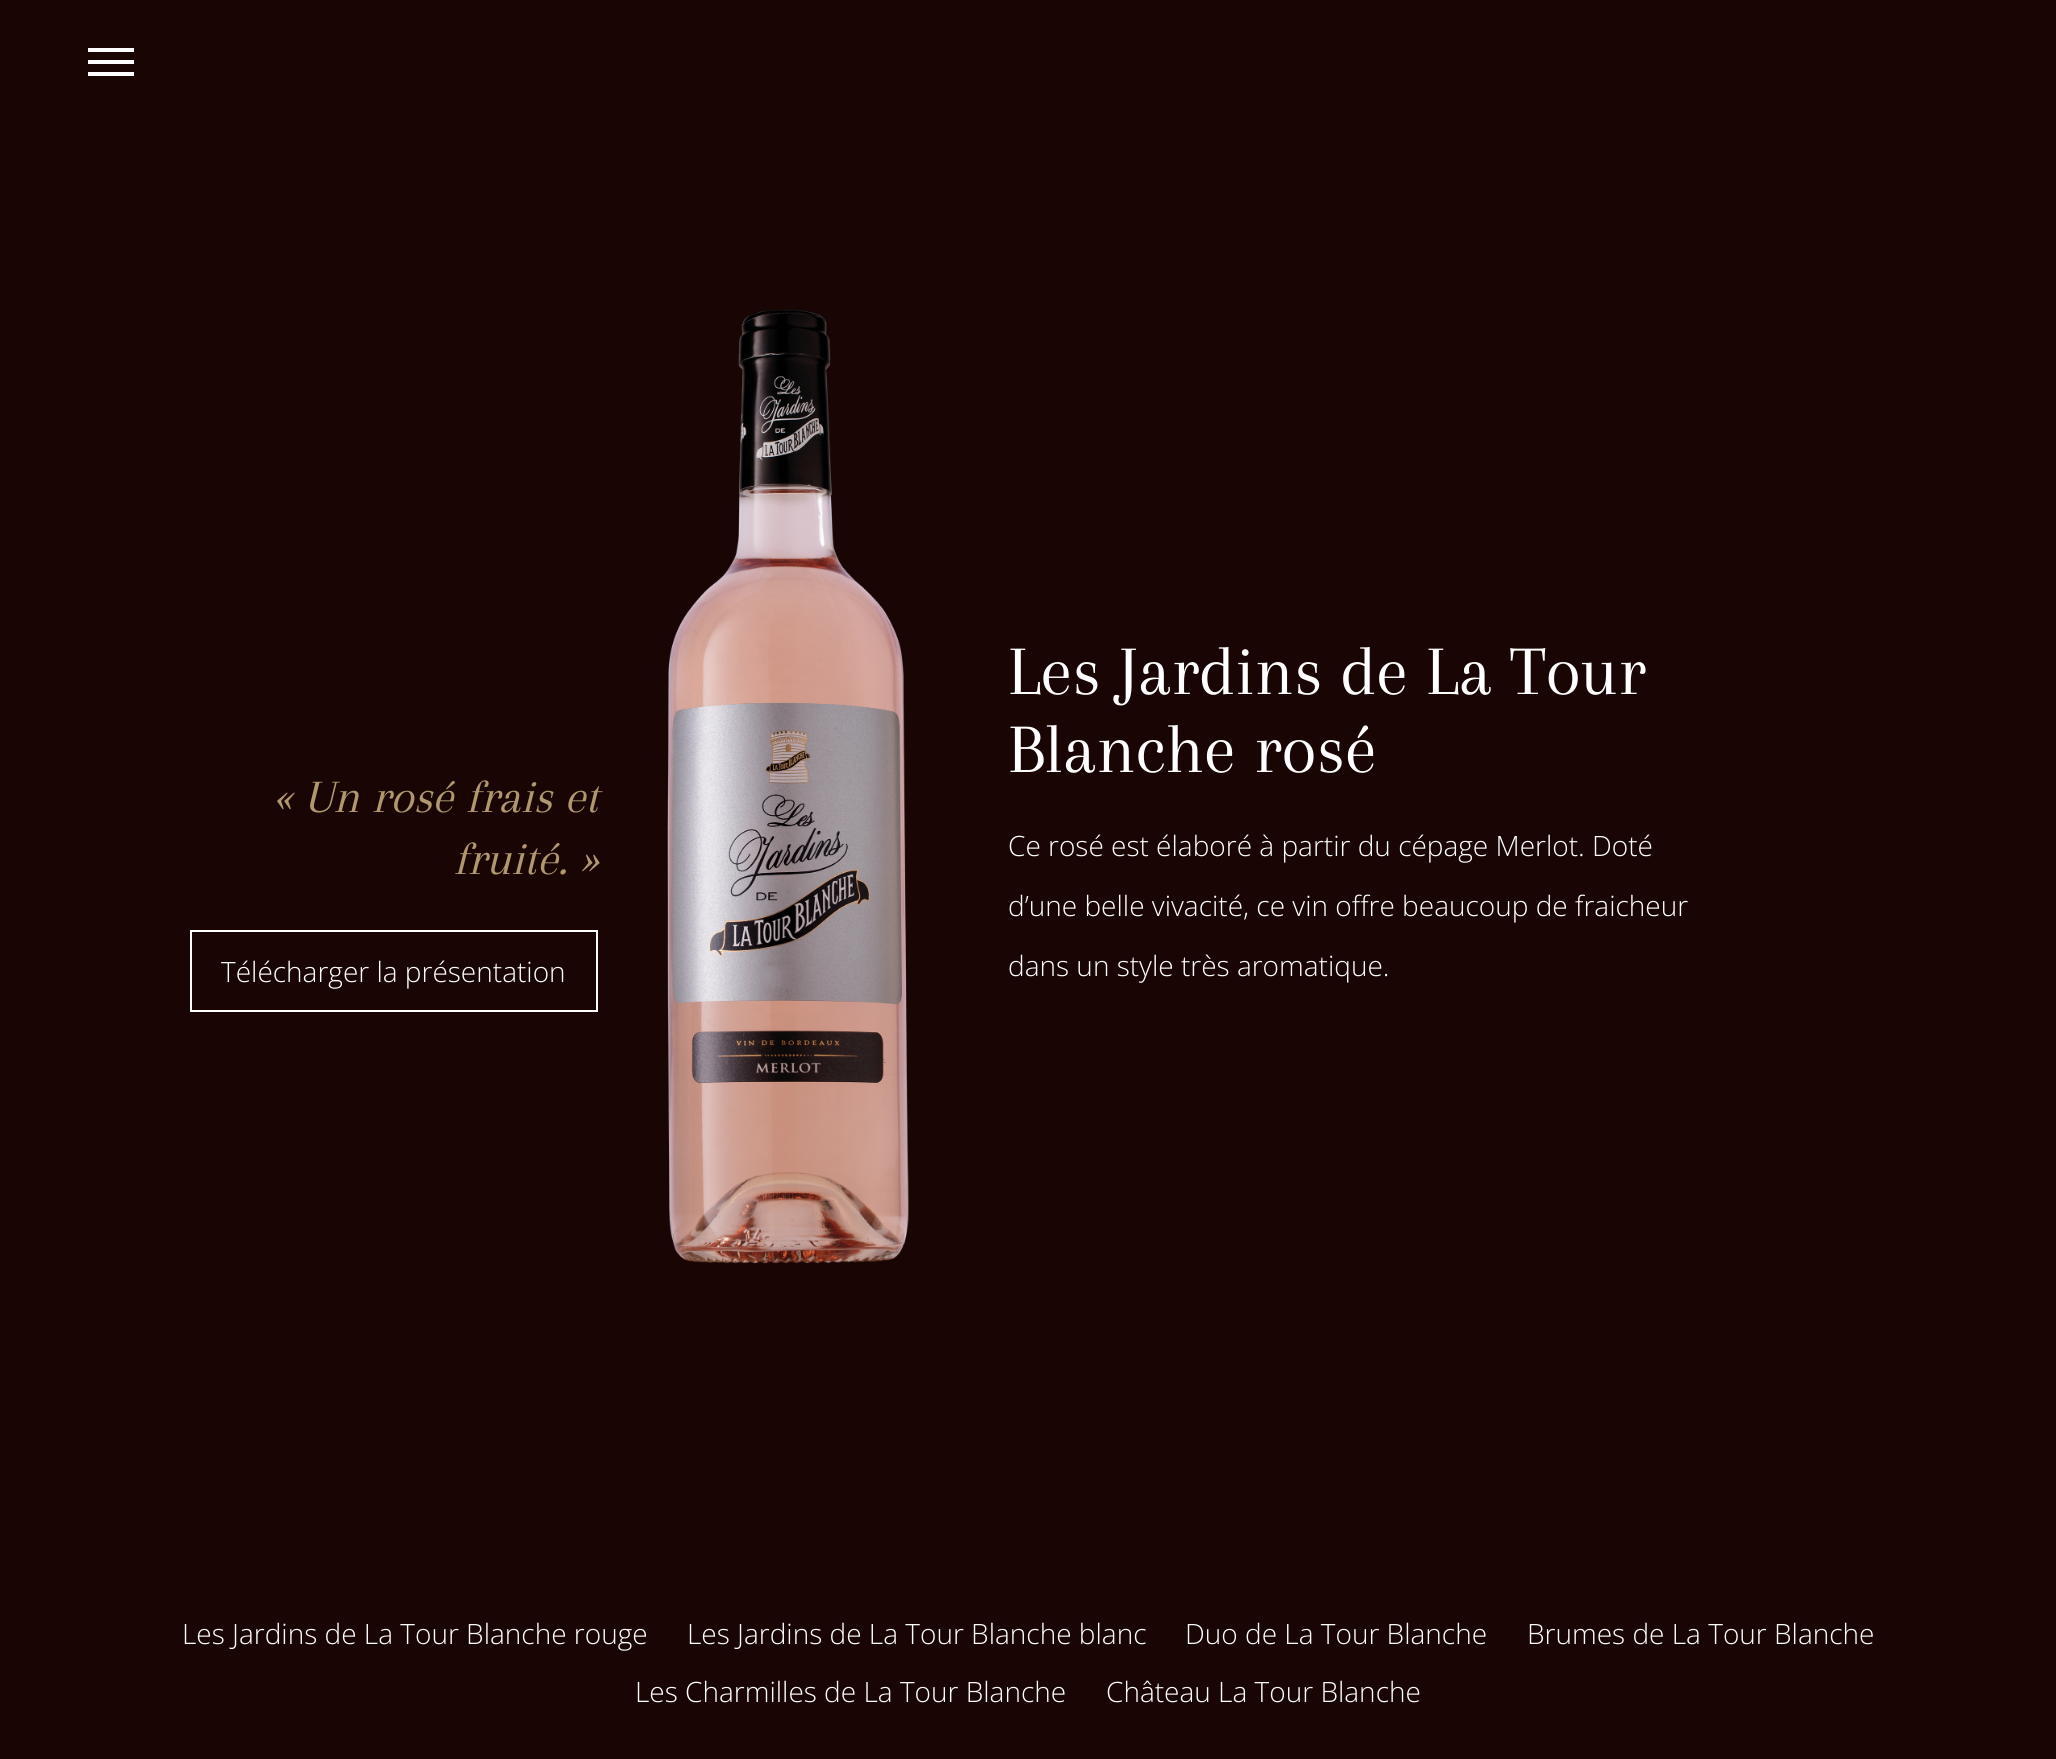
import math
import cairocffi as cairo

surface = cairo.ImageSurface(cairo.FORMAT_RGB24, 2056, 1759)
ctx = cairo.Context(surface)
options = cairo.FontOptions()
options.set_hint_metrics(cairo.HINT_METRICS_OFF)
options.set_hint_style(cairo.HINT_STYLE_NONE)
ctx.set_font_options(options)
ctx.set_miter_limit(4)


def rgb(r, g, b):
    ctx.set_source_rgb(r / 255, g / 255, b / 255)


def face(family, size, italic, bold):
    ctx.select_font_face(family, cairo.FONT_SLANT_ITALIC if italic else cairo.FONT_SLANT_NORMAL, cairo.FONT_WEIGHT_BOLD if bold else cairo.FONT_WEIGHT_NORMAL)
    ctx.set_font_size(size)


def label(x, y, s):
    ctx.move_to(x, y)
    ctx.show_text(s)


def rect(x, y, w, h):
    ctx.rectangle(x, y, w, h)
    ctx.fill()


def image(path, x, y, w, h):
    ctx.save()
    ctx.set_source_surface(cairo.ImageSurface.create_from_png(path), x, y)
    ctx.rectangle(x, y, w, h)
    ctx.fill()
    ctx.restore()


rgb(24, 5, 4)
ctx.paint()
rgb(255, 255, 255)
rect(88, 48, 46, 4)
rect(88, 60, 46, 4)
rect(88, 72, 46, 4)
face('Arapey', 48, 1, 0)
rgb(176, 151, 109)
label(273, 812, '« Un rosé frais et')
label(453, 874, 'fruité. »')
ctx.rectangle(191, 931, 406, 80)
rgb(255, 255, 255)
ctx.stroke()
face('Open Sans Light', 28, 0, 0)
label(221, 982, 'Télécharger la présentation')
image('image0.png', 667, 309, 242, 955)
face('Arapey', 72, 0, 0)
label(1008, 694, 'Les Jardins de La Tour')
label(1008, 772, 'Blanche rosé')
face('Open Sans Light', 28, 0, 0)
label(1008, 856, 'Ce rosé est élaboré à partir du cépage Merlot. Doté')
label(1008, 916, 'd’une belle vivacité, ce vin offre beaucoup de fraicheur')
label(1008, 976, 'dans un style très aromatique.')
label(182, 1644, 'Les Jardins de La Tour Blanche rouge')
label(687, 1644, 'Les Jardins de La Tour Blanche blanc')
label(1185, 1644, 'Duo de La Tour Blanche')
label(1527, 1644, 'Brumes de La Tour Blanche')
label(635, 1702, 'Les Charmilles de La Tour Blanche')
label(1106, 1702, 'Château La Tour Blanche')
surface.write_to_png('render.png')
